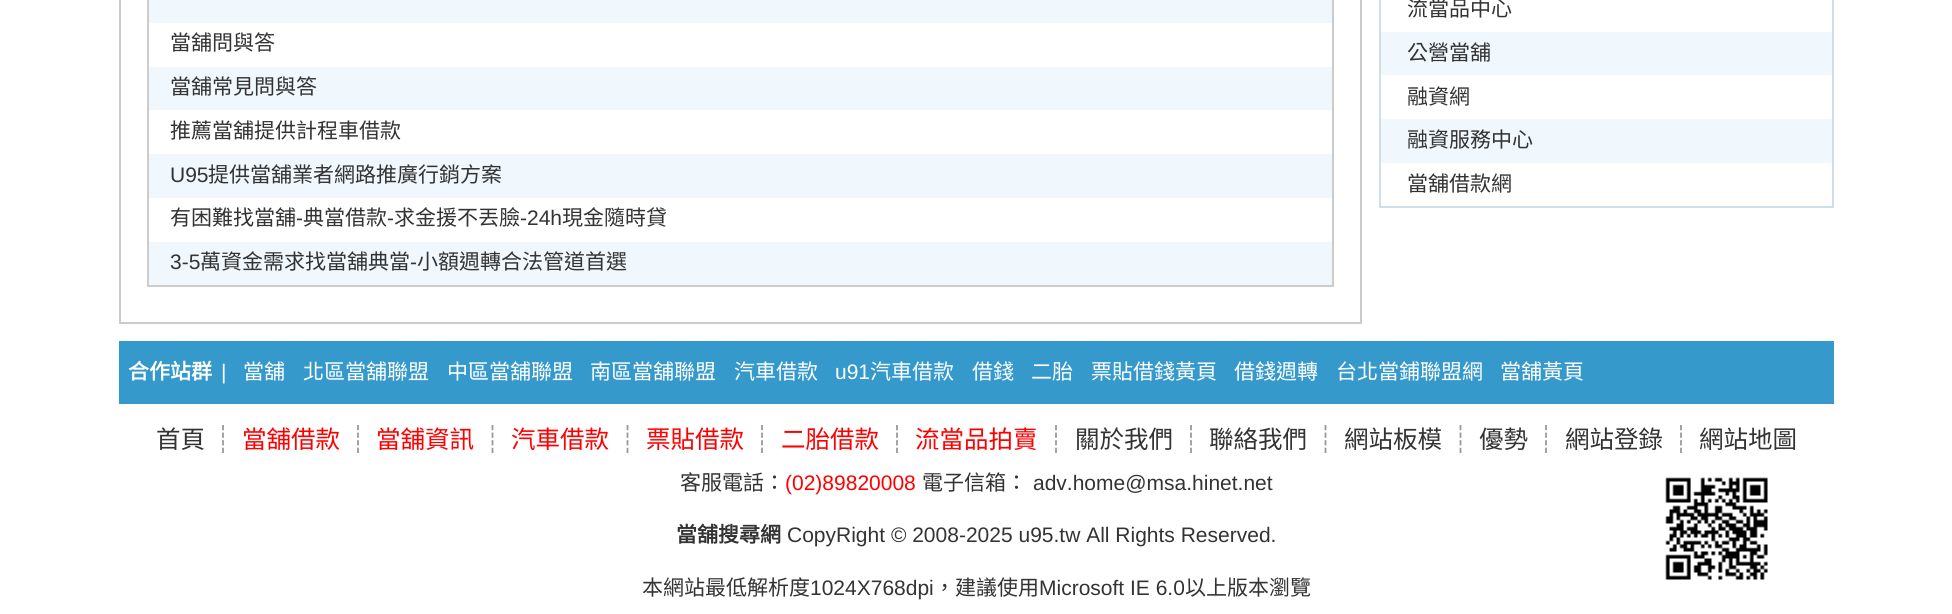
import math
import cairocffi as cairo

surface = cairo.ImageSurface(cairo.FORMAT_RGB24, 1952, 614)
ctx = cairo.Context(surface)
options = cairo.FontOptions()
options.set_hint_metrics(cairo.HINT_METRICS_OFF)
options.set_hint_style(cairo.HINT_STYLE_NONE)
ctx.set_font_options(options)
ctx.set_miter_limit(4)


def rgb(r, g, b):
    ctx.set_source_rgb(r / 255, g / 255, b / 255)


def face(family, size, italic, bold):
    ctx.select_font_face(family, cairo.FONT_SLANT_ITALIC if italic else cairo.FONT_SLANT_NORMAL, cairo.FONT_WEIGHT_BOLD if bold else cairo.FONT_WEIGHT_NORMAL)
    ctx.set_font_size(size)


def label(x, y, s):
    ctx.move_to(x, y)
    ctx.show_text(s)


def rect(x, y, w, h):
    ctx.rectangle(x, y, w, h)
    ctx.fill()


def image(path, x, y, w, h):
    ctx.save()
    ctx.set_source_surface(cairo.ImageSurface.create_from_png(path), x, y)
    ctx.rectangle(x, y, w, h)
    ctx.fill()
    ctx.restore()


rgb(255, 255, 255)
ctx.paint()
ctx.rectangle(120, -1, 1241, 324)
rgb(204, 204, 204)
ctx.stroke()
ctx.rectangle(148, -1, 1185, 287)
ctx.stroke()
rgb(240, 247, 253)
rect(149, 0, 1183, 23)
face('Noto Sans CJK TC', 21, 0, 0)
rgb(51, 51, 51)
label(170, 50, '當舖問與答')
rgb(240, 247, 253)
rect(149, 67, 1183, 43)
rgb(51, 51, 51)
label(170, 94, '當舖常見問與答')
label(170, 138, '推薦當舖提供計程車借款')
rgb(240, 247, 253)
rect(149, 154, 1183, 44)
face('Liberation Sans', 21, 0, 0)
rgb(51, 51, 51)
label(170, 182, 'U95')
face('Noto Sans CJK TC', 21, 0, 0)
label(208, 182, '提供當舖業者網路推廣行銷方案')
label(170, 225, '有困難找當舖')
face('Liberation Sans', 21, 0, 0)
label(296, 225, '-')
face('Noto Sans CJK TC', 21, 0, 0)
label(303, 225, '典當借款')
face('Liberation Sans', 21, 0, 0)
label(387, 225, '-')
face('Noto Sans CJK TC', 21, 0, 0)
label(394, 225, '求金援不丟臉')
face('Liberation Sans', 21, 0, 0)
label(520, 225, '-24h')
face('Noto Sans CJK TC', 21, 0, 0)
label(562, 225, '現金隨時貸')
rgb(240, 247, 253)
rect(149, 242, 1183, 43)
face('Liberation Sans', 21, 0, 0)
rgb(51, 51, 51)
label(170, 269, '3-5')
face('Noto Sans CJK TC', 21, 0, 0)
label(200, 269, '萬資金需求找當舖典當')
face('Liberation Sans', 21, 0, 0)
label(410, 269, '-')
face('Noto Sans CJK TC', 21, 0, 0)
label(417, 269, '小額週轉合法管道首選')
ctx.rectangle(1380, -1, 453, 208)
rgb(207, 223, 234)
ctx.stroke()
rgb(51, 51, 51)
label(1407, 16, '流當品中心')
rgb(240, 247, 253)
rect(1381, 32, 451, 43)
rgb(51, 51, 51)
label(1407, 60, '公營當舖')
label(1407, 104, '融資網')
rgb(240, 247, 253)
rect(1381, 119, 451, 44)
rgb(51, 51, 51)
label(1407, 147, '融資服務中心')
label(1407, 191, '當舖借款網')
rgb(53, 153, 204)
rect(119, 341, 1715, 63)
face('Noto Sans CJK TC', 21, 0, 1)
rgb(255, 255, 255)
label(128, 379, '合作站群')
face('Liberation Sans', 21, 0, 0)
label(221, 379, '|')
face('Noto Sans CJK TC', 21, 0, 0)
label(243, 379, '當舖')
label(303, 379, '北區當舖聯盟')
label(447, 379, '中區當舖聯盟')
label(590, 379, '南區當舖聯盟')
label(734, 379, '汽車借款')
face('Liberation Sans', 21, 0, 0)
label(835, 379, 'u91')
face('Noto Sans CJK TC', 21, 0, 0)
label(870, 379, '汽車借款')
label(972, 379, '借錢')
label(1031, 379, '二胎')
label(1091, 379, '票貼借錢黃頁')
label(1234, 379, '借錢週轉')
label(1336, 379, '台北當鋪聯盟網')
label(1500, 379, '當舖黃頁')
face('Noto Sans CJK TC', 24.5, 0, 0)
rgb(51, 51, 51)
label(156, 448, '首頁')
ctx.new_path()
ctx.move_to(223, 425)
ctx.line_to(223, 453)
rgb(153, 153, 153)
ctx.set_line_width(1.8)
ctx.set_dash([5.25, 2.33])
ctx.stroke()
rgb(255, 0, 0)
label(242, 448, '當舖借款')
ctx.new_path()
ctx.move_to(358, 425)
ctx.line_to(358, 453)
rgb(153, 153, 153)
ctx.stroke()
rgb(255, 0, 0)
label(376, 448, '當舖資訊')
ctx.new_path()
ctx.move_to(492.5, 425)
ctx.line_to(492.5, 453)
rgb(153, 153, 153)
ctx.stroke()
rgb(255, 0, 0)
label(511, 448, '汽車借款')
ctx.new_path()
ctx.move_to(627.5, 425)
ctx.line_to(627.5, 453)
rgb(153, 153, 153)
ctx.stroke()
rgb(255, 0, 0)
label(646, 448, '票貼借款')
ctx.new_path()
ctx.move_to(762, 425)
ctx.line_to(762, 453)
rgb(153, 153, 153)
ctx.stroke()
rgb(255, 0, 0)
label(781, 448, '二胎借款')
ctx.new_path()
ctx.move_to(897, 425)
ctx.line_to(897, 453)
rgb(153, 153, 153)
ctx.stroke()
rgb(255, 0, 0)
label(915, 448, '流當品拍賣')
ctx.new_path()
ctx.move_to(1056, 425)
ctx.line_to(1056, 453)
rgb(153, 153, 153)
ctx.stroke()
rgb(51, 51, 51)
label(1075, 448, '關於我們')
ctx.new_path()
ctx.move_to(1191, 425)
ctx.line_to(1191, 453)
rgb(153, 153, 153)
ctx.stroke()
rgb(51, 51, 51)
label(1209, 448, '聯絡我們')
ctx.new_path()
ctx.move_to(1325.5, 425)
ctx.line_to(1325.5, 453)
rgb(153, 153, 153)
ctx.stroke()
rgb(51, 51, 51)
label(1344, 448, '網站板模')
ctx.new_path()
ctx.move_to(1460.5, 425)
ctx.line_to(1460.5, 453)
rgb(153, 153, 153)
ctx.stroke()
rgb(51, 51, 51)
label(1479, 448, '優勢')
ctx.new_path()
ctx.move_to(1546, 425)
ctx.line_to(1546, 453)
rgb(153, 153, 153)
ctx.stroke()
rgb(51, 51, 51)
label(1565, 448, '網站登錄')
ctx.new_path()
ctx.move_to(1681, 425)
ctx.line_to(1681, 453)
rgb(153, 153, 153)
ctx.stroke()
rgb(51, 51, 51)
label(1699, 448, '網站地圖')
face('Noto Sans CJK TC', 21, 0, 0)
label(680, 490, '客服電話：')
face('Liberation Sans', 21, 0, 0)
rgb(255, 0, 0)
label(785, 490, '(02)89820008')
face('Noto Sans CJK TC', 21, 0, 0)
rgb(51, 51, 51)
label(922, 490, '電子信箱：')
face('Liberation Sans', 21, 0, 0)
label(1033, 490, 'adv.home@msa.hinet.net')
face('Noto Sans CJK TC', 21, 0, 1)
label(676, 542, '當舖搜尋網')
face('Liberation Sans', 21, 0, 0)
label(787, 542, 'CopyRight © 2008-2025 u95.tw All Rights Reserved.')
image('image0.png', 1665, 477, 103, 103)
face('Noto Sans CJK TC', 21, 0, 0)
label(642, 595, '本網站最低解析度')
face('Liberation Sans', 21, 0, 0)
label(810, 595, '1024X768dpi')
face('Noto Sans CJK TC', 21, 0, 0)
label(934, 595, '，建議使用')
face('Liberation Sans', 21, 0, 0)
label(1039, 595, 'Microsoft IE 6.0')
face('Noto Sans CJK TC', 21, 0, 0)
label(1185, 595, '以上版本瀏覽')
surface.write_to_png('render.png')
